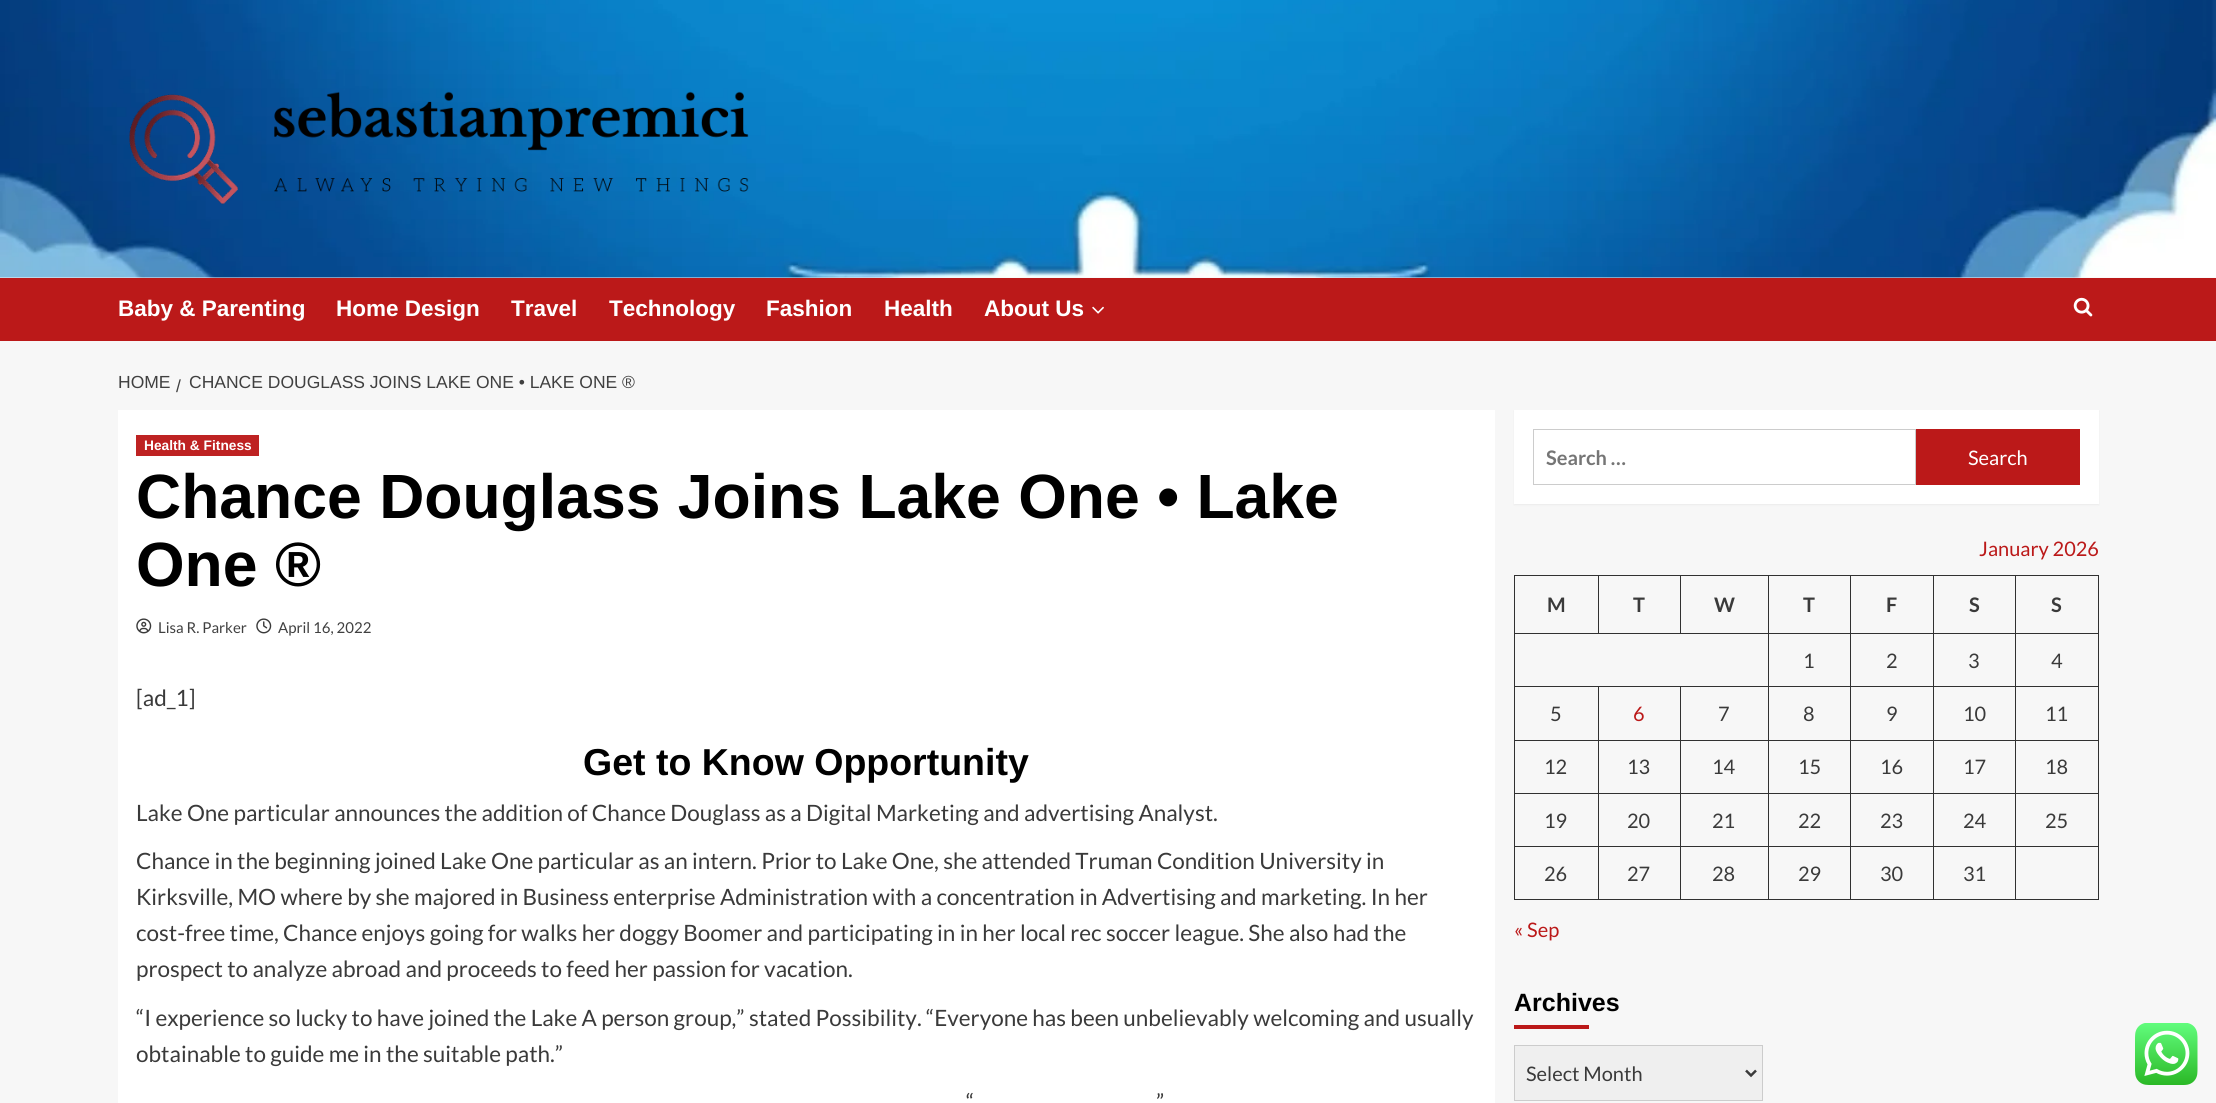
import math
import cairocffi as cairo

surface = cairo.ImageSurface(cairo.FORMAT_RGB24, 2216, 1103)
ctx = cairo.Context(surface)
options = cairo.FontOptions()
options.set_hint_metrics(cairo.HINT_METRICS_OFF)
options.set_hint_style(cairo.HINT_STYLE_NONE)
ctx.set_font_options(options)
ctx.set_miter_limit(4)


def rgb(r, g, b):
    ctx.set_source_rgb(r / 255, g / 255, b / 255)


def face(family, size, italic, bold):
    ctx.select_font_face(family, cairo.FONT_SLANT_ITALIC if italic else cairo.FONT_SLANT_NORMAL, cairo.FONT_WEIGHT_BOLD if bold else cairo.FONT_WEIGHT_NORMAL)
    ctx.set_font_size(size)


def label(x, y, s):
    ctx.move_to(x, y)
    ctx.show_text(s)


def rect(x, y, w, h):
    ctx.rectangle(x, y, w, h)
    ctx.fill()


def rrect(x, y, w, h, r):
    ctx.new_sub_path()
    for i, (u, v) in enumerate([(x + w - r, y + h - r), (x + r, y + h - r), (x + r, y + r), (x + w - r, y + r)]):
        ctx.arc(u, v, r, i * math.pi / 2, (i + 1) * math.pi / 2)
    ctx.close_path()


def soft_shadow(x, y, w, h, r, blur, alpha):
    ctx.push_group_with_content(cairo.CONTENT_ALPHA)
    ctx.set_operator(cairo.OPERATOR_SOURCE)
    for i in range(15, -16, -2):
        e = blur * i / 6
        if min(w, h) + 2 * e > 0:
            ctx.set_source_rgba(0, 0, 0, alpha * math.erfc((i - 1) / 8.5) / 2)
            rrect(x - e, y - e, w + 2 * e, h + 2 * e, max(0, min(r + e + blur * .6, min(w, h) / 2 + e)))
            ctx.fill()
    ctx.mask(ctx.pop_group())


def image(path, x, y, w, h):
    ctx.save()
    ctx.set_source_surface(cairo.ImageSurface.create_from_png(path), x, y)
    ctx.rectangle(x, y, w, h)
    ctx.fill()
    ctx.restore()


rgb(247, 247, 247)
ctx.paint()
image('image0.png', 0, 0, 2216, 278)
image('image1.png', 129, 91, 620, 114)
rgb(187, 25, 25)
rect(0, 278, 2216, 63)
face('Liberation Sans', 22.5, 0, 1)
rgb(255, 255, 255)
label(118, 316, 'Baby & Parenting')
label(336, 316, 'Home Design')
label(511, 316, 'Travel')
label(609, 316, 'Technology')
label(766, 316, 'Fashion')
label(884, 316, 'Health')
label(984, 316, 'About Us')
image('image2.png', 1092, 306, 12, 8)
image('image3.png', 2073, 297, 20, 20)
face('Liberation Sans', 17.5, 0, 0)
rgb(64, 64, 64)
label(118, 388, 'HOME')
label(176, 392, '/')
label(189, 388, 'CHANCE DOUGLASS JOINS LAKE ONE • LAKE ONE ®')
rgb(255, 255, 255)
rect(118, 410, 1377, 693)
rgb(190, 34, 34)
rect(136, 435, 123, 21)
face('Liberation Sans', 13.75, 0, 1)
rgb(255, 255, 255)
label(144, 450, 'Health & Fitness')
face('Liberation Sans', 62.5, 0, 1)
rgb(0, 0, 0)
label(136, 518, 'Chance Douglass Joins Lake One • Lake')
label(136, 586, 'One ®')
image('image4.png', 136, 618, 16, 16)
face('Lato', 15, 0, 0)
rgb(64, 64, 64)
label(158, 633, 'Lisa R. Parker')
image('image5.png', 256, 618, 16, 16)
label(278, 633, 'April 16, 2022')
face('Lato', 22.5, 0, 0)
rgb(58, 58, 58)
label(136, 706, '[ad_1]')
face('Liberation Sans', 37.5, 0, 1)
rgb(0, 0, 0)
label(583, 775, 'Get to Know Opportunity')
face('Lato', 22.5, 0, 0)
rgb(58, 58, 58)
label(136, 821, 'Lake One particular announces the addition of Chance Douglass as a Digital Marketing and advertising Analyst.')
label(136, 869, 'Chance in the beginning joined Lake One particular as an intern. Prior to Lake One, she attended Truman Condition University in')
label(136, 905, 'Kirksville, MO where by she majored in Business enterprise Administration with a concentration in Advertising and marketing. In her')
label(136, 941, 'cost-free time, Chance enjoys going for walks her doggy Boomer and participating in in her local rec soccer league. She also had the')
label(136, 977, 'prospect to analyze abroad and proceeds to feed her passion for vacation.')
label(136, 1026, '“I experience so lucky to have joined the Lake A person group,” stated Possibility. “Everyone has been unbelievably welcoming and usually')
label(136, 1062, 'obtainable to guide me in the suitable path.”')
label(966, 1110, '“')
label(1156, 1110, '”')
rgb(0, 0, 0)
soft_shadow(1514, 411, 585, 94, 0, 1, 0.05)
rgb(255, 255, 255)
rect(1514, 410, 585, 94)
ctx.rectangle(1533.5, 429.5, 382, 55)
rgb(204, 204, 204)
ctx.set_line_width(1)
ctx.stroke()
face('Lato', 20, 0, 1)
rgb(117, 117, 117)
label(1546, 465, 'Search …')
rgb(187, 25, 25)
rect(1916, 429, 164, 56)
face('Lato', 20, 0, 0)
rgb(255, 255, 255)
label(1968, 465, 'Search')
rgb(187, 25, 25)
label(1979, 556, 'January 2026')
rgb(49, 49, 49)
rect(2015, 575, 84, 1)
rect(2015, 633, 84, 1)
rect(2015, 686, 84, 1)
rect(2015, 740, 84, 1)
rect(2015, 793, 84, 1)
rect(2015, 846, 84, 1)
rect(2098, 846, 1, 54)
rect(2015, 899, 84, 1)
rect(2015, 846, 1, 54)
rect(1933, 846, 83, 1)
rect(2015, 793, 1, 55)
rect(1933, 793, 83, 1)
rect(2015, 740, 1, 54)
rect(1933, 740, 83, 1)
rect(2015, 686, 1, 55)
rect(1933, 686, 83, 1)
rect(2015, 633, 1, 55)
rect(1933, 633, 83, 1)
rect(2015, 575, 1, 59)
rect(1933, 575, 83, 1)
rect(1933, 899, 83, 1)
rect(1933, 846, 1, 54)
rect(1850, 846, 84, 1)
rect(1933, 793, 1, 55)
rect(1850, 793, 84, 1)
rect(1933, 740, 1, 54)
rect(1850, 740, 84, 1)
rect(1933, 686, 1, 55)
rect(1850, 686, 84, 1)
rect(1933, 633, 1, 55)
rect(1850, 633, 84, 1)
rect(1933, 575, 1, 59)
rect(1850, 575, 84, 1)
rect(1850, 899, 84, 1)
rect(1850, 846, 1, 54)
rect(1768, 846, 83, 1)
rect(1850, 793, 1, 55)
rect(1768, 793, 83, 1)
rect(1850, 740, 1, 54)
rect(1768, 740, 83, 1)
rect(1850, 686, 1, 55)
rect(1768, 686, 83, 1)
rect(1850, 633, 1, 55)
rect(1768, 633, 83, 1)
rect(1850, 575, 1, 59)
rect(1768, 575, 83, 1)
rect(1768, 899, 83, 1)
rect(1768, 846, 1, 54)
rect(1680, 846, 89, 1)
rect(1768, 793, 1, 55)
rect(1680, 793, 89, 1)
rect(1768, 740, 1, 54)
rect(1680, 740, 89, 1)
rect(1768, 686, 1, 55)
rect(1680, 686, 89, 1)
rect(1768, 633, 1, 55)
rect(1514, 633, 255, 1)
rect(1768, 575, 1, 59)
rect(1680, 575, 89, 1)
rect(1680, 575, 1, 59)
rect(1598, 575, 83, 1)
rect(1598, 575, 1, 59)
rect(1514, 575, 85, 1)
rect(1680, 899, 89, 1)
rect(1680, 846, 1, 54)
rect(1598, 846, 83, 1)
rect(1680, 793, 1, 55)
rect(1598, 793, 83, 1)
rect(1680, 740, 1, 54)
rect(1598, 740, 83, 1)
rect(1680, 686, 1, 55)
rect(1598, 686, 83, 1)
rect(1598, 899, 83, 1)
rect(1598, 846, 1, 54)
rect(1514, 846, 85, 1)
rect(1598, 793, 1, 55)
rect(1514, 793, 85, 1)
rect(1598, 740, 1, 54)
rect(1514, 740, 85, 1)
rect(1598, 686, 1, 55)
rect(1514, 686, 85, 1)
rect(1514, 899, 85, 1)
rect(1514, 846, 1, 54)
rect(1514, 793, 1, 55)
rect(1514, 740, 1, 54)
rect(1514, 686, 1, 55)
rect(1514, 633, 1, 55)
rect(1514, 575, 1, 59)
face('Lato', 20, 0, 1)
rgb(58, 58, 58)
label(1547, 612, 'M')
label(1633, 612, 'T')
label(1714, 612, 'W')
label(1803, 612, 'T')
label(1886, 612, 'F')
label(1969, 612, 'S')
rgb(49, 49, 49)
rect(2098, 793, 1, 55)
rect(2098, 740, 1, 54)
rect(2098, 686, 1, 55)
rect(2098, 633, 1, 55)
rect(2098, 575, 1, 59)
rgb(58, 58, 58)
label(2051, 612, 'S')
face('Lato', 20, 0, 0)
label(1803, 668, '1')
label(1886, 668, '2')
label(1968, 668, '3')
label(2051, 668, '4')
label(1550, 721, '5')
rgb(187, 25, 25)
label(1633, 721, '6')
rgb(58, 58, 58)
label(1718, 721, '7')
label(1803, 721, '8')
label(1886, 721, '9')
label(1963, 721, '10')
label(2045, 721, '11')
label(1544, 774, '12')
label(1627, 774, '13')
label(1712, 774, '14')
label(1798, 774, '15')
label(1880, 774, '16')
label(1963, 774, '17')
label(2045, 774, '18')
label(1544, 828, '19')
label(1627, 828, '20')
label(1712, 828, '21')
label(1798, 828, '22')
label(1880, 828, '23')
label(1963, 828, '24')
label(2045, 828, '25')
label(1544, 881, '26')
label(1627, 881, '27')
label(1712, 881, '28')
label(1798, 881, '29')
label(1880, 881, '30')
label(1963, 881, '31')
rgb(187, 25, 25)
label(1514, 937, '« Sep')
face('Liberation Sans', 25, 0, 1)
rgb(0, 0, 0)
label(1514, 1011, 'Archives')
rgb(187, 25, 25)
rect(1514, 1025, 75, 4)
rgb(239, 239, 239)
ctx.rectangle(1514.5, 1045.5, 248, 55)
ctx.fill_preserve()
rgb(204, 204, 204)
ctx.stroke()
ctx.new_path()
ctx.move_to(1746, 1070.5)
ctx.line_to(1751, 1075.5)
ctx.line_to(1756, 1070.5)
rgb(58, 58, 58)
ctx.set_line_width(2.5)
ctx.stroke()
face('Lato', 20, 0, 0)
label(1526, 1081, 'Select Month')
image('image6.png', 2135, 1023, 63, 62)
surface.write_to_png('render.png')
